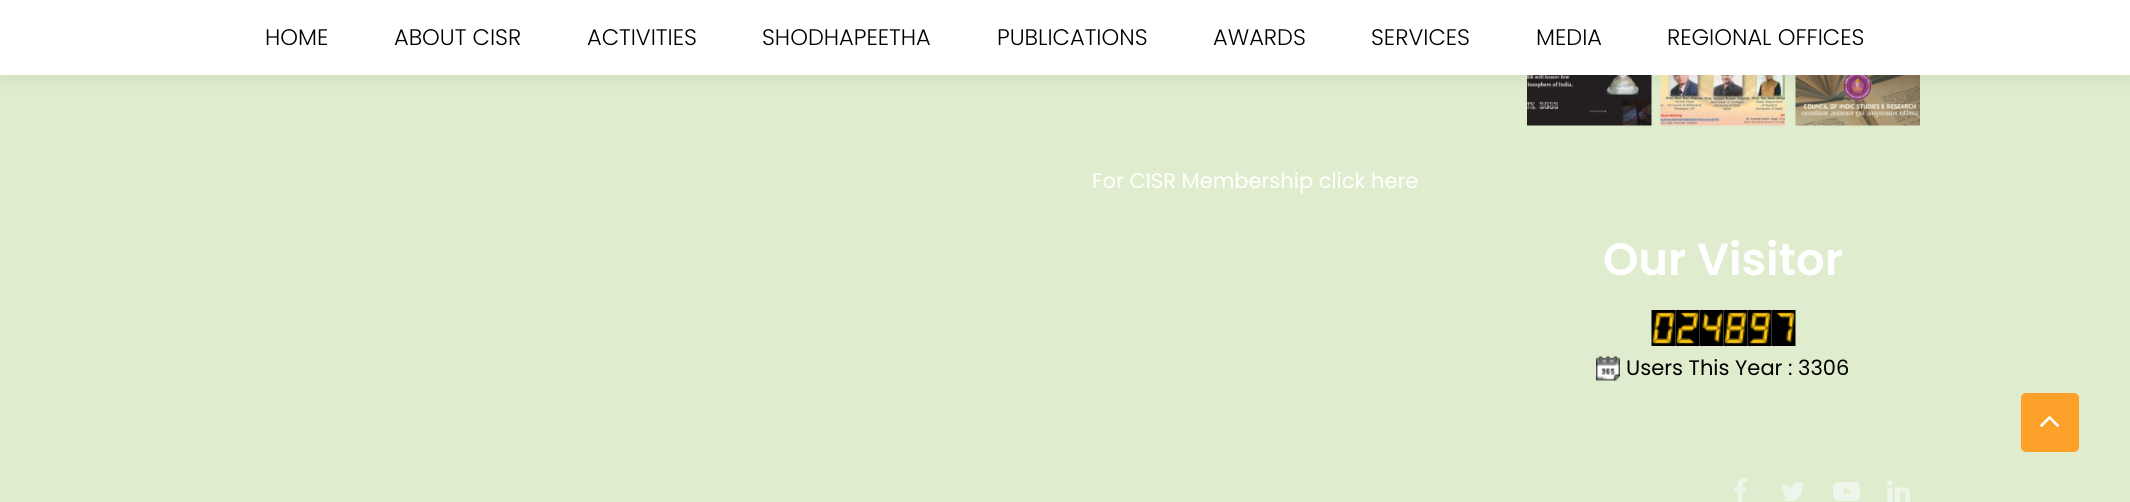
import math
import cairocffi as cairo

surface = cairo.ImageSurface(cairo.FORMAT_RGB24, 2130, 502)
ctx = cairo.Context(surface)
options = cairo.FontOptions()
options.set_hint_metrics(cairo.HINT_METRICS_OFF)
options.set_hint_style(cairo.HINT_STYLE_NONE)
ctx.set_font_options(options)
ctx.set_miter_limit(4)


def rgb(r, g, b):
    ctx.set_source_rgb(r / 255, g / 255, b / 255)


def face(family, size, italic, bold):
    ctx.select_font_face(family, cairo.FONT_SLANT_ITALIC if italic else cairo.FONT_SLANT_NORMAL, cairo.FONT_WEIGHT_BOLD if bold else cairo.FONT_WEIGHT_NORMAL)
    ctx.set_font_size(size)


def label(x, y, s):
    ctx.move_to(x, y)
    ctx.show_text(s)


def rect(x, y, w, h):
    ctx.rectangle(x, y, w, h)
    ctx.fill()


def rrect(x, y, w, h, r):
    ctx.new_sub_path()
    for i, (u, v) in enumerate([(x + w - r, y + h - r), (x + r, y + h - r), (x + r, y + r), (x + w - r, y + r)]):
        ctx.arc(u, v, r, i * math.pi / 2, (i + 1) * math.pi / 2)
    ctx.close_path()


def soft_shadow(x, y, w, h, r, blur, alpha):
    ctx.push_group_with_content(cairo.CONTENT_ALPHA)
    ctx.set_operator(cairo.OPERATOR_SOURCE)
    for i in range(15, -16, -2):
        e = blur * i / 6
        if min(w, h) + 2 * e > 0:
            ctx.set_source_rgba(0, 0, 0, alpha * math.erfc((i - 1) / 8.5) / 2)
            rrect(x - e, y - e, w + 2 * e, h + 2 * e, max(0, min(r + e + blur * .6, min(w, h) / 2 + e)))
            ctx.fill()
    ctx.mask(ctx.pop_group())


def image(path, x, y, w, h):
    ctx.save()
    ctx.set_source_surface(cairo.ImageSurface.create_from_png(path), x, y)
    ctx.rectangle(x, y, w, h)
    ctx.fill()
    ctx.restore()


rgb(223, 237, 206)
ctx.paint()
image('image0.png', 1527, 75, 125, 51)
image('image1.png', 1660, 75, 125, 51)
image('image2.png', 1795, 75, 125, 51)
rgb(0, 0, 0)
soft_shadow(0, 6, 2130, 75, 0, 7.5, 0.06)
rgb(255, 255, 255)
rect(0, 0, 2130, 75)
face('Poppins Light', 22.5, 0, 0)
rgb(0, 0, 0)
label(265, 45, 'HOME')
label(394, 45, 'ABOUT CISR')
label(587, 45, 'ACTIVITIES')
label(762, 45, 'SHODHAPEETHA')
label(997, 45, 'PUBLICATIONS')
label(1213, 45, 'AWARDS')
label(1371, 45, 'SERVICES')
label(1536, 45, 'MEDIA')
label(1667, 45, 'REGIONAL OFFICES')
rgb(225, 238, 209)
rect(210, 429, 1710, 2)
face('Poppins', 21, 0, 0)
rgb(255, 255, 255)
label(1092, 188, 'For CISR Membership click here')
face('Poppins SemiBold', 45, 0, 0)
label(1603, 275, 'Our Visitor')
image('image3.png', 1651, 310, 25, 36)
image('image4.png', 1675, 310, 25, 36)
image('image5.png', 1699, 310, 25, 36)
image('image6.png', 1723, 310, 25, 36)
image('image7.png', 1747, 310, 25, 36)
image('image8.png', 1771, 310, 25, 36)
image('image9.png', 1596, 356, 24, 25)
face('Poppins', 21, 0, 0)
rgb(0, 0, 0)
label(1626, 375, 'Users This Year : 3306')
image('image10.png', 1734, 478, 13, 24)
image('image11.png', 1781, 482, 24, 20)
image('image12.png', 1833, 482, 27, 19)
image('image13.png', 1887, 480, 24, 22)
rgb(253, 161, 43)
rrect(2021, 393, 58, 59, 5)
ctx.fill()
image('image14.png', 2040, 415, 20, 12)
surface.write_to_png('render.png')
